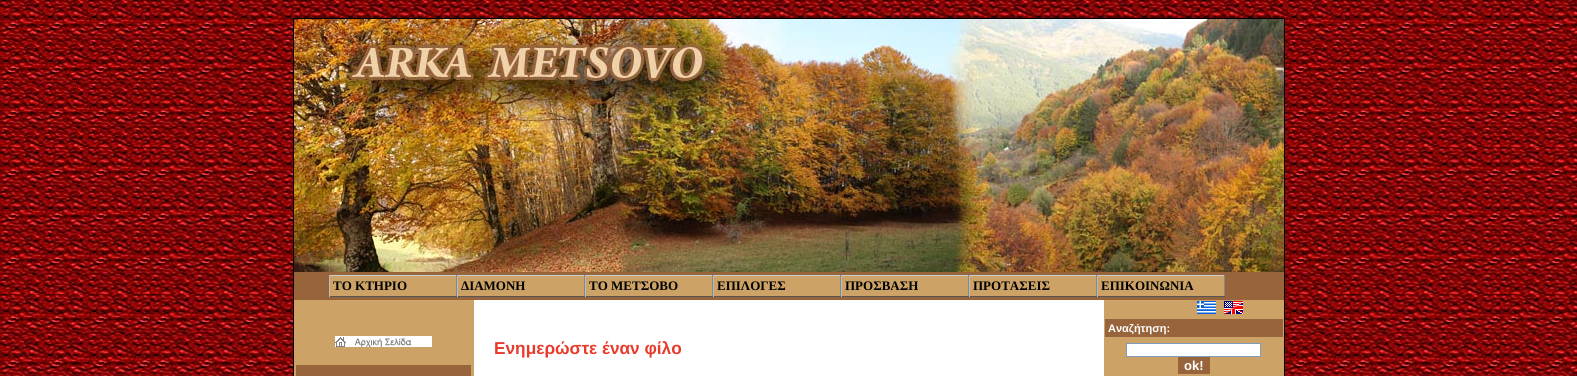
import math
import cairocffi as cairo

surface = cairo.ImageSurface(cairo.FORMAT_RGB24, 1577, 376)
ctx = cairo.Context(surface)
options = cairo.FontOptions()
options.set_hint_metrics(cairo.HINT_METRICS_OFF)
options.set_hint_style(cairo.HINT_STYLE_NONE)
ctx.set_font_options(options)
ctx.set_miter_limit(4)


def rgb(r, g, b):
    ctx.set_source_rgb(r / 255, g / 255, b / 255)


def face(family, size, italic, bold):
    ctx.select_font_face(family, cairo.FONT_SLANT_ITALIC if italic else cairo.FONT_SLANT_NORMAL, cairo.FONT_WEIGHT_BOLD if bold else cairo.FONT_WEIGHT_NORMAL)
    ctx.set_font_size(size)


def label(x, y, s):
    ctx.move_to(x, y)
    ctx.show_text(s)


def rect(x, y, w, h):
    ctx.rectangle(x, y, w, h)
    ctx.fill()


def image(path, x, y, w, h):
    ctx.save()
    ctx.set_source_surface(cairo.ImageSurface.create_from_png(path), x, y)
    ctx.rectangle(x, y, w, h)
    ctx.fill()
    ctx.restore()


rgb(255, 255, 255)
ctx.paint()
image('image0.png', 0, 0, 1577, 376)
rgb(0, 0, 0)
rect(293, 18, 992, 358)
rgb(255, 255, 255)
rect(474, 300, 630, 76)
image('image1.png', 294, 19, 990, 253)
rgb(152, 100, 60)
rect(294, 272, 990, 28)
rgb(204, 162, 102)
rect(330, 276, 126, 20)
rgb(204, 204, 204)
rect(329, 275, 896, 1)
rgb(136, 136, 136)
rect(456, 275, 1, 22)
rgb(85, 85, 85)
rect(329, 296, 128, 1)
rgb(187, 187, 187)
rect(329, 275, 1, 22)
face('Liberation Serif', 13, 0, 1)
rgb(0, 0, 0)
label(333, 290, 'ΤΟ ΚΤΗΡΙΟ')
rgb(204, 162, 102)
rect(458, 276, 126, 20)
rgb(136, 136, 136)
rect(584, 275, 1, 22)
rgb(85, 85, 85)
rect(457, 296, 128, 1)
rgb(187, 187, 187)
rect(457, 275, 1, 22)
rgb(0, 0, 0)
label(461, 290, 'ΔΙΑΜΟΝΗ')
rgb(204, 162, 102)
rect(586, 276, 126, 20)
rgb(136, 136, 136)
rect(712, 275, 1, 22)
rgb(85, 85, 85)
rect(585, 296, 128, 1)
rgb(187, 187, 187)
rect(585, 275, 1, 22)
rgb(0, 0, 0)
label(589, 290, 'ΤΟ ΜΕΤΣΟΒΟ')
rgb(204, 162, 102)
rect(714, 276, 126, 20)
rgb(136, 136, 136)
rect(840, 275, 1, 22)
rgb(85, 85, 85)
rect(713, 296, 128, 1)
rgb(187, 187, 187)
rect(713, 275, 1, 22)
rgb(0, 0, 0)
label(717, 290, 'ΕΠΙΛΟΓΕΣ')
rgb(204, 162, 102)
rect(842, 276, 126, 20)
rgb(136, 136, 136)
rect(968, 275, 1, 22)
rgb(85, 85, 85)
rect(841, 296, 128, 1)
rgb(187, 187, 187)
rect(841, 275, 1, 22)
rgb(0, 0, 0)
label(845, 290, 'ΠΡΟΣΒΑΣΗ')
rgb(204, 162, 102)
rect(970, 276, 126, 20)
rgb(136, 136, 136)
rect(1096, 275, 1, 22)
rgb(85, 85, 85)
rect(969, 296, 128, 1)
rgb(187, 187, 187)
rect(969, 275, 1, 22)
rgb(0, 0, 0)
label(973, 290, 'ΠΡΟΤΑΣΕΙΣ')
rgb(204, 162, 102)
rect(1098, 276, 126, 20)
rgb(136, 136, 136)
rect(1224, 275, 1, 22)
rgb(85, 85, 85)
rect(1097, 296, 128, 1)
rgb(187, 187, 187)
rect(1097, 275, 1, 22)
rgb(0, 0, 0)
label(1101, 290, 'ΕΠΙΚΟΙΝΩΝΙΑ')
rgb(204, 162, 102)
rect(294, 300, 180, 76)
image('image2.png', 335, 336, 97, 11)
rgb(152, 100, 60)
rect(296, 365, 175, 11)
face('Liberation Sans', 17.25, 0, 1)
rgb(233, 59, 44)
label(494, 354, 'Ενημερώστε έναν φίλο')
rgb(204, 162, 102)
rect(1104, 300, 180, 76)
image('image3.png', 1197, 301, 19, 13)
image('image4.png', 1224, 301, 19, 13)
rgb(152, 100, 60)
rect(1105, 319, 178, 18)
face('Liberation Sans', 11, 0, 1)
rgb(255, 255, 255)
label(1108, 332, 'Αναζήτηση:')
ctx.rectangle(1126.5, 343.5, 134, 13)
ctx.fill_preserve()
rgb(127, 157, 185)
ctx.set_line_width(1)
ctx.stroke()
rgb(152, 100, 60)
rect(1178, 357, 32, 17)
face('Liberation Sans', 13, 0, 1)
rgb(255, 255, 255)
label(1184, 370, 'ok!')
surface.write_to_png('render.png')
